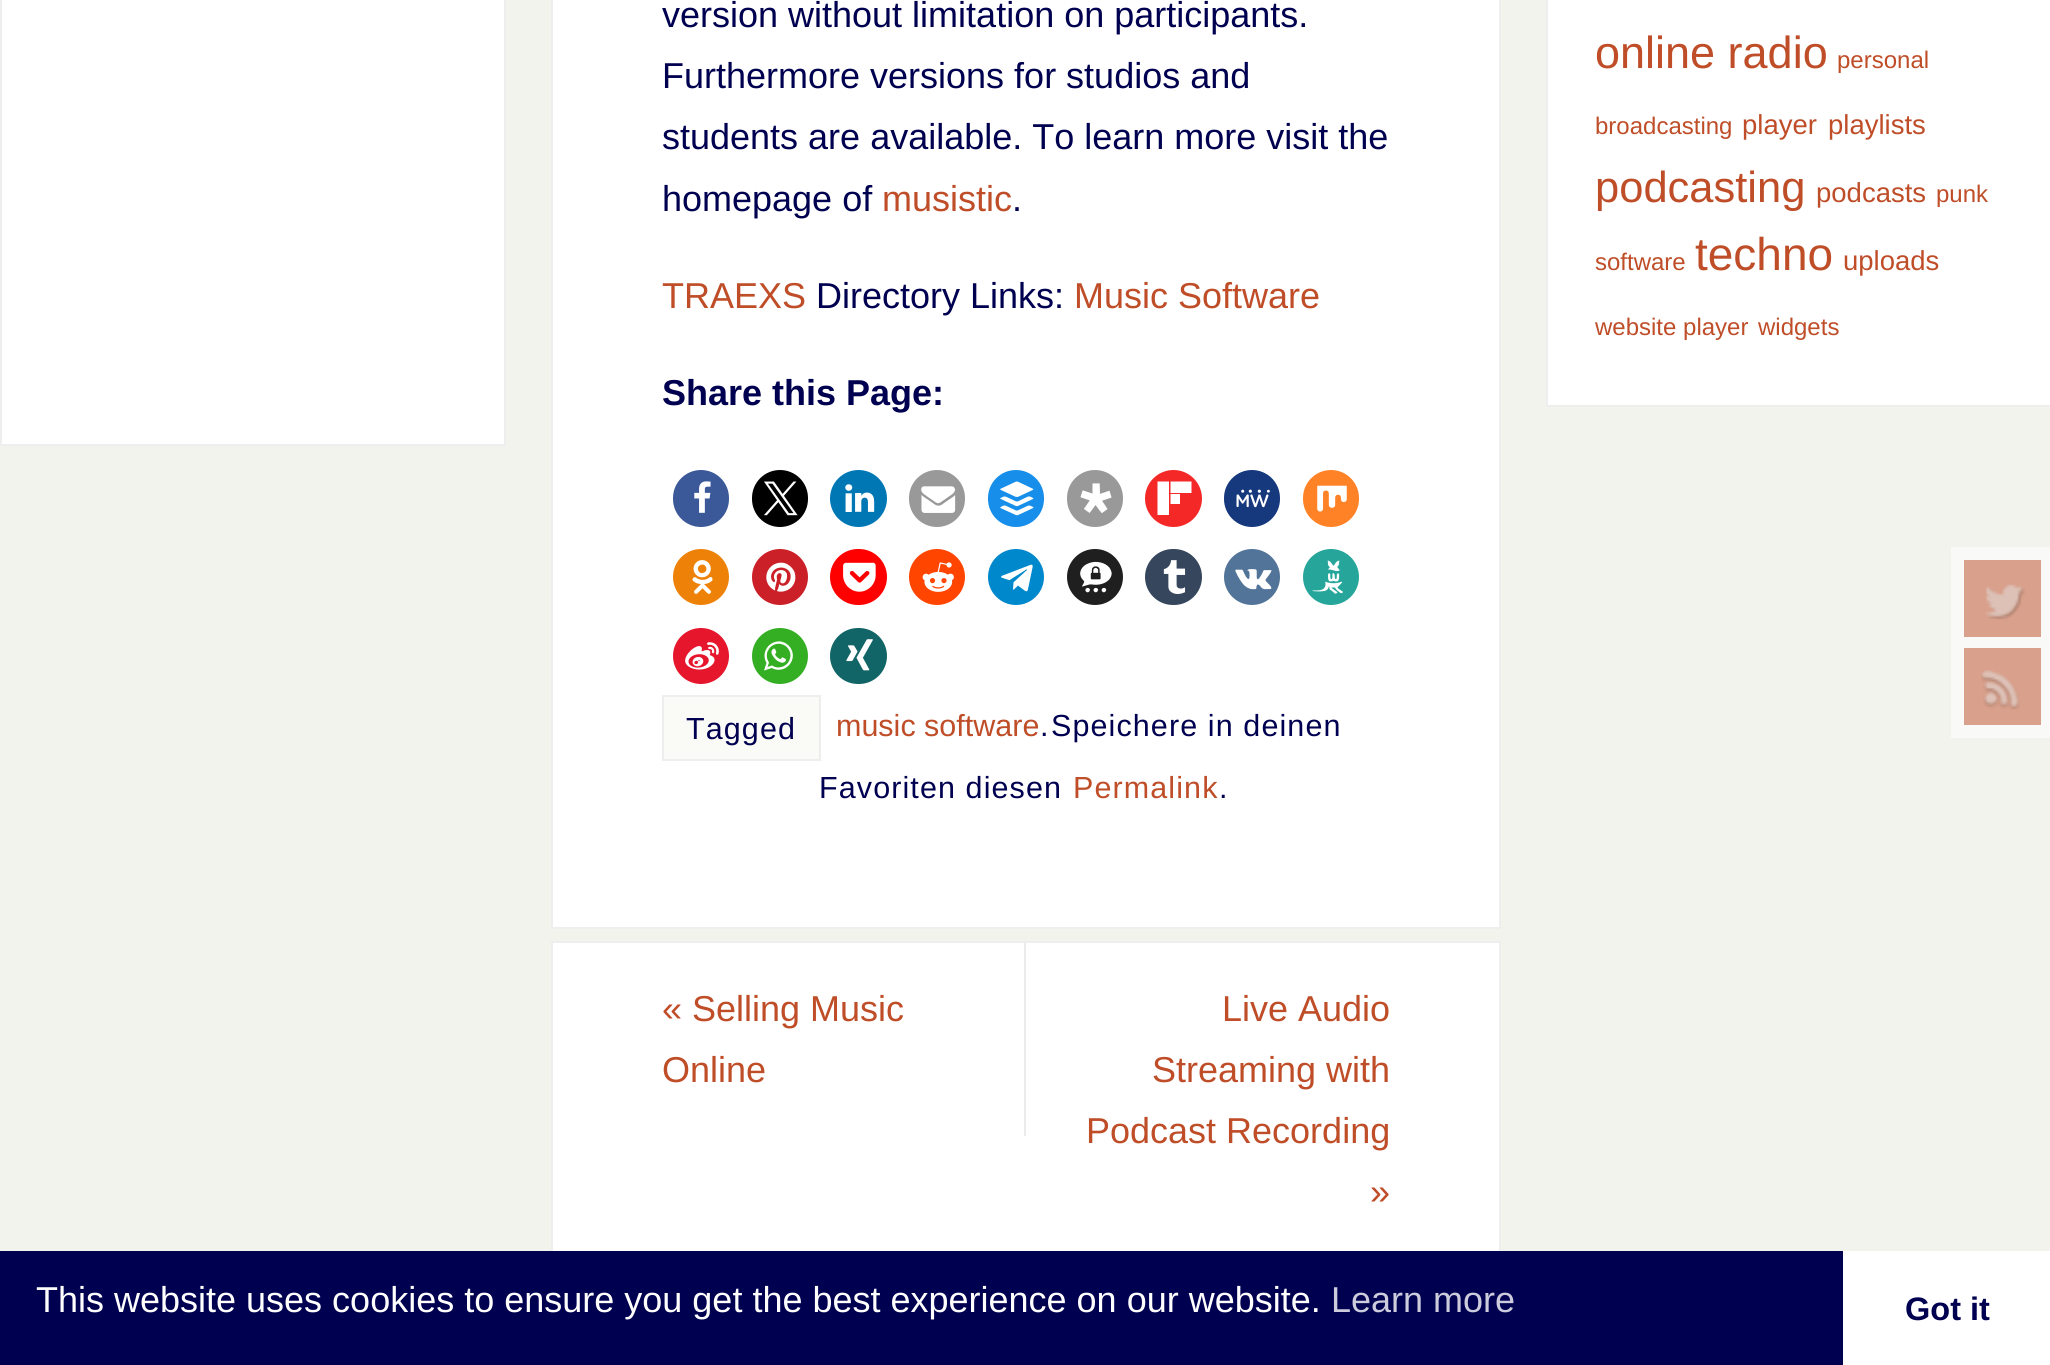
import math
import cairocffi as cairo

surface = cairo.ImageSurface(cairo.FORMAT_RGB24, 2050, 1365)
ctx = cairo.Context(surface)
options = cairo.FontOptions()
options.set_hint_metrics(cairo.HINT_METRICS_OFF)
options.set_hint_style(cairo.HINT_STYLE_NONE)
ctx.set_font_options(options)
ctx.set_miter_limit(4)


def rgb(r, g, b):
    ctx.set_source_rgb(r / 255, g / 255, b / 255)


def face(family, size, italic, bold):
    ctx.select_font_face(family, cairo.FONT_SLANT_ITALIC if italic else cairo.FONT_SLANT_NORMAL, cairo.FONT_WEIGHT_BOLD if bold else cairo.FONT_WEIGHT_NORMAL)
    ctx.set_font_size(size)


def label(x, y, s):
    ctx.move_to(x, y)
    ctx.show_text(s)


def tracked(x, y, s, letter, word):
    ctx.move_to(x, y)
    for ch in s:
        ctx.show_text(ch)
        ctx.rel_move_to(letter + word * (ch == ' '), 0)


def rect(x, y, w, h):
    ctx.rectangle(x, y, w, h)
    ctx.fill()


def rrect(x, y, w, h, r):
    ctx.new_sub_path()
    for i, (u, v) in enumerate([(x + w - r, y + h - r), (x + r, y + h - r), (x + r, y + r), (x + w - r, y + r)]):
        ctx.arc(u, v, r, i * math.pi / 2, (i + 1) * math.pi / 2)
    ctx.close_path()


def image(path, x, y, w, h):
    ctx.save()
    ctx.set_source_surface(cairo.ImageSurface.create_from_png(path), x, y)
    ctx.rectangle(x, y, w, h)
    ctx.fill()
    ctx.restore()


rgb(243, 243, 238)
ctx.paint()
rgb(255, 255, 255)
ctx.rectangle(1, -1, 504, 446)
ctx.fill_preserve()
rgb(238, 238, 238)
ctx.stroke()
rgb(255, 255, 255)
ctx.rectangle(552, -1, 948, 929)
ctx.fill_preserve()
rgb(238, 238, 238)
ctx.stroke()
face('Liberation Sans', 36, 0, 0)
rgb(0, 0, 80)
label(662, 27, 'version without limitation on participants.')
label(662, 88, 'Furthermore versions for studios and')
label(662, 149, 'students are available. To learn more visit the')
label(662, 211, 'homepage of')
rgb(191, 77, 40)
label(882, 211, 'musistic')
rgb(0, 0, 80)
label(1012, 211, '.')
rgb(191, 77, 40)
label(662, 308, 'TRAEXS')
rgb(0, 0, 80)
label(816, 308, 'Directory Links:')
rgb(191, 77, 40)
label(1074, 308, 'Music Software')
face('Liberation Sans', 36, 0, 1)
rgb(0, 0, 80)
label(662, 405, 'Share this Page:')
rgb(59, 89, 152)
rrect(673, 470, 56, 57, 28)
ctx.fill()
image('image0.png', 694, 481, 17, 32)
rgb(0, 0, 0)
rrect(752, 470, 56, 57, 28)
ctx.fill()
image('image1.png', 764, 481, 34, 35)
rgb(0, 119, 181)
ctx.arc(858.5, 498.5, 28.5, 0, 2 * math.pi)
ctx.fill()
image('image2.png', 845, 484, 30, 28)
rgb(153, 153, 153)
rrect(909, 470, 56, 57, 28)
ctx.fill()
image('image3.png', 921, 486, 35, 27)
rgb(22, 142, 234)
rrect(988, 470, 56, 57, 28)
ctx.fill()
image('image4.png', 1000, 481, 34, 35)
rgb(153, 153, 153)
rrect(1067, 470, 56, 57, 28)
ctx.fill()
image('image5.png', 1080, 483, 32, 31)
rgb(245, 40, 40)
ctx.arc(1173.5, 498.5, 28.5, 0, 2 * math.pi)
ctx.fill()
rgb(255, 255, 255)
ctx.new_path()
ctx.move_to(1157.5, 481.5)
ctx.line_to(1169, 481.5)
ctx.line_to(1169, 515)
ctx.line_to(1157.5, 515)
ctx.close_path()
ctx.move_to(1170.5, 494)
ctx.line_to(1180, 494)
ctx.line_to(1180, 504)
ctx.line_to(1170.5, 504)
ctx.close_path()
ctx.move_to(1170.5, 481.5)
ctx.line_to(1191.5, 481.5)
ctx.line_to(1191.5, 493)
ctx.line_to(1170.5, 493)
ctx.close_path()
ctx.fill()
rgb(22, 56, 125)
rrect(1224, 470, 56, 57, 28)
ctx.fill()
image('image6.png', 1236, 489, 34, 19)
rgb(255, 130, 38)
rrect(1303, 470, 56, 57, 28)
ctx.fill()
image('image7.png', 1317, 485, 30, 27)
rgb(238, 130, 8)
ctx.arc(701, 577, 28, 0, 2 * math.pi)
ctx.fill()
image('image8.png', 692, 560, 21, 34)
rgb(203, 32, 39)
ctx.arc(780, 577, 28, 0, 2 * math.pi)
ctx.fill()
image('image9.png', 766, 562, 30, 30)
rgb(255, 0, 0)
rrect(830, 549, 57, 56, 28)
ctx.fill()
image('image10.png', 843, 562, 33, 30)
rgb(255, 69, 0)
ctx.arc(937, 577, 28, 0, 2 * math.pi)
ctx.fill()
image('image11.png', 922, 562, 32, 30)
rgb(0, 136, 204)
ctx.arc(1016, 577, 28, 0, 2 * math.pi)
ctx.fill()
image('image12.png', 1001, 564, 32, 28)
rgb(31, 31, 31)
ctx.arc(1095, 577, 28, 0, 2 * math.pi)
ctx.fill()
image('image13.png', 1080, 561, 32, 32)
rgb(54, 70, 93)
rrect(1145, 549, 57, 56, 28)
ctx.fill()
image('image14.png', 1163, 560, 23, 34)
rgb(82, 116, 152)
ctx.arc(1252, 577, 28, 0, 2 * math.pi)
ctx.fill()
image('image15.png', 1235, 569, 37, 21)
rgb(38, 166, 154)
ctx.arc(1331, 577, 28, 0, 2 * math.pi)
ctx.fill()
image('image16.png', 1312, 560, 31, 34)
rgb(230, 22, 45)
ctx.arc(701, 656, 28, 0, 2 * math.pi)
ctx.fill()
image('image17.png', 685, 642, 34, 28)
rgb(52, 175, 35)
ctx.arc(780, 656, 28, 0, 2 * math.pi)
ctx.fill()
image('image18.png', 764, 641, 29, 30)
rgb(18, 101, 103)
rrect(830, 628, 57, 56, 28)
ctx.fill()
image('image19.png', 846, 639, 27, 32)
rgb(250, 250, 247)
ctx.rectangle(663, 696, 157, 64)
ctx.fill_preserve()
rgb(238, 238, 238)
ctx.stroke()
face('Liberation Sans', 30.5, 0, 0)
rgb(0, 0, 80)
tracked(686, 739, 'Tagged', 1.1, 0)
rgb(191, 77, 40)
label(836, 736, 'music software')
rgb(0, 0, 80)
label(1040, 736, '.')
tracked(1051, 736, 'Speichere in deinen', 1.1, 0)
tracked(819, 798, 'Favoriten diesen', 1.1, 0)
rgb(191, 77, 40)
tracked(1073, 798, 'Permalink', 1.1, 0)
rgb(0, 0, 80)
tracked(1219, 798, '.', 1.1, 0)
rgb(255, 255, 255)
rect(553, 943, 946, 308)
ctx.rectangle(552, 942, 948, 317)
rgb(238, 238, 238)
ctx.stroke()
rgb(235, 235, 235)
rect(1024, 943, 2, 193)
face('Liberation Sans', 36, 0, 0)
rgb(191, 77, 40)
label(662, 1021, '« Selling Music')
label(662, 1082, 'Online')
label(1222, 1021, 'Live Audio')
label(1152, 1082, 'Streaming with')
label(1086, 1143, 'Podcast Recording')
label(1370, 1204, '»')
rgb(255, 255, 255)
ctx.rectangle(1547, -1, 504, 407)
ctx.fill_preserve()
rgb(238, 238, 238)
ctx.stroke()
face('Liberation Sans', 45, 0, 0)
rgb(191, 77, 40)
label(1595, 68, 'online radio')
face('Liberation Sans', 24, 0, 0)
label(1837, 68, 'personal')
label(1595, 134, 'broadcasting')
face('Liberation Sans', 27.5, 0, 0)
label(1742, 134, 'player')
label(1828, 134, 'playlists')
face('Liberation Sans', 43.5, 0, 0)
label(1595, 202, 'podcasting')
face('Liberation Sans', 27.5, 0, 0)
label(1816, 202, 'podcasts')
face('Liberation Sans', 24, 0, 0)
label(1936, 202, 'punk')
label(1595, 270, 'software')
face('Liberation Sans', 46, 0, 0)
label(1695, 270, 'techno')
face('Liberation Sans', 27.5, 0, 0)
label(1843, 270, 'uploads')
face('Liberation Sans', 24, 0, 0)
label(1595, 335, 'website player')
label(1758, 335, 'widgets')
rgb(249, 249, 247)
rect(1951, 547, 99, 191)
rgb(217, 160, 139)
rect(1964, 560, 77, 77)
image('image20.png', 1985, 584, 40, 36)
rect(1964, 648, 77, 77)
image('image21.png', 1981, 670, 39, 40)
rgb(0, 0, 80)
rect(0, 1251, 1843, 114)
face('Liberation Sans', 36, 0, 0)
rgb(255, 255, 255)
label(36, 1312, 'This website uses cookies to ensure you get the best experience on our website.')
rgb(204, 204, 220)
label(1331, 1312, 'Learn more')
rgb(255, 255, 255)
rect(1843, 1251, 207, 114)
face('Liberation Sans', 32.5, 0, 1)
rgb(0, 0, 80)
label(1905, 1320, 'Got it')
surface.write_to_png('render.png')
